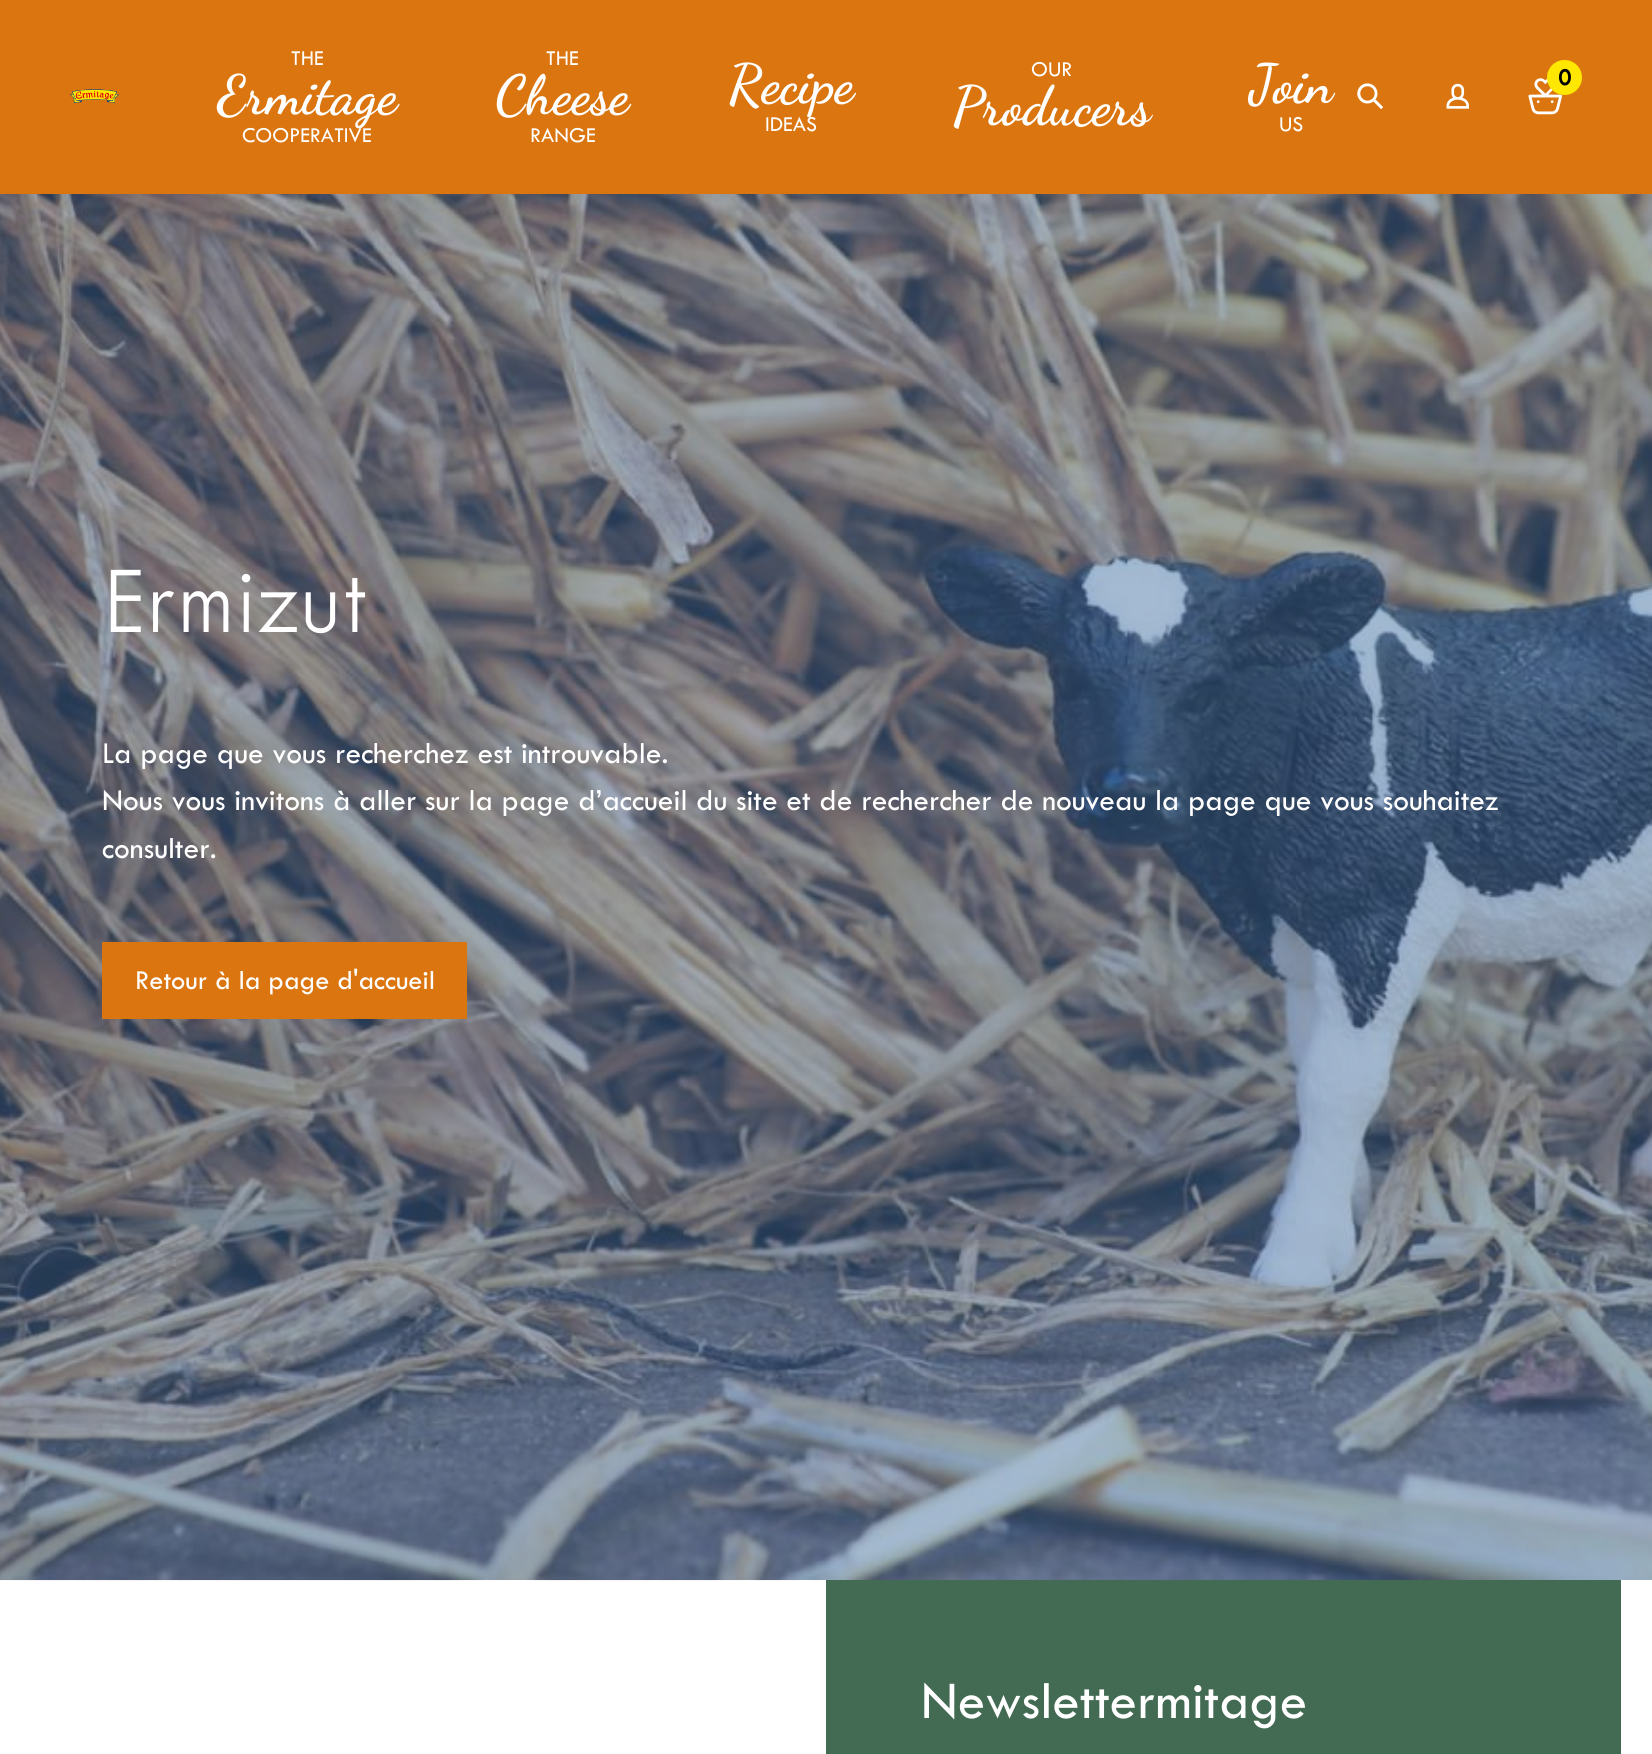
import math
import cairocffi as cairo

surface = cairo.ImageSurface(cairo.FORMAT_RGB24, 1652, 1754)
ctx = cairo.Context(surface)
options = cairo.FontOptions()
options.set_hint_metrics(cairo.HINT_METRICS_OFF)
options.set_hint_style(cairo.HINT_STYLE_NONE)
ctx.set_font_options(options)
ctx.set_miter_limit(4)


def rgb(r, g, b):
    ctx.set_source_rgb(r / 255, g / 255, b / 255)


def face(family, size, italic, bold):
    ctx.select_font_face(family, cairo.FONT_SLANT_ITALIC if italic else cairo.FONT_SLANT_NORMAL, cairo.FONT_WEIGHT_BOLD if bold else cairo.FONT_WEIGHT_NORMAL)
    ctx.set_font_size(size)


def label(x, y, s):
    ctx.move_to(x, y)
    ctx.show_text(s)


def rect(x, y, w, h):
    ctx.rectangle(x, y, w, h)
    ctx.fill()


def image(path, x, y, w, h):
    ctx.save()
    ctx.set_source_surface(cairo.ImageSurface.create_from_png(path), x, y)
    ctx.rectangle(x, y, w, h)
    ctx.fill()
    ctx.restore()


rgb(255, 255, 255)
ctx.paint()
rgb(219, 117, 16)
rect(0, 0, 1652, 194)
image('image0.png', 70, 89, 49, 15)
face('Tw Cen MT', 22, 0, 0)
rgb(255, 255, 255)
label(291, 65, 'THE')
face('Dancing Script', 55, 0, 1)
label(217, 113, 'Ermitage')
face('Tw Cen MT', 22, 0, 0)
label(242, 142, 'COOPERATIVE')
label(546, 65, 'THE')
face('Dancing Script', 55, 0, 1)
label(495, 113, 'Cheese')
face('Tw Cen MT', 22, 0, 0)
label(530, 142, 'RANGE')
face('Dancing Script', 55, 0, 1)
label(728, 102, 'Recipe')
face('Tw Cen MT', 22, 0, 0)
label(765, 131, 'IDEAS')
label(1031, 76, 'OUR')
face('Dancing Script', 55, 0, 1)
label(952, 124, 'Producers')
label(1249, 102, 'Join')
face('Tw Cen MT', 22, 0, 0)
label(1279, 131, 'US')
image('image1.png', 1528, 78, 35, 37)
rgb(255, 231, 0)
ctx.arc(1564.5, 77.5, 17.5, 0, 2 * math.pi)
ctx.fill()
face('Tw Cen MT', 24, 0, 1)
rgb(0, 0, 0)
label(1558, 85, '0')
image('image2.png', 1357, 83, 27, 27)
image('image3.png', 1446, 83, 23, 26)
image('image4.png', 0, 194, 1652, 1387)
face('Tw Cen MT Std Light', 99, 0, 0)
rgb(255, 255, 255)
label(102, 632, 'Ermizut')
face('Tw Cen MT', 31.5, 0, 0)
label(102, 763, 'La page que vous recherchez est introuvable.')
label(102, 810, 'Nous vous invitons à aller sur la page d’accueil du site et de rechercher de nouveau la page que vous souhaitez')
label(102, 858, 'consulter.')
rgb(219, 117, 16)
rect(102, 942, 365, 77)
face('Tw Cen MT', 28.4, 0, 0)
rgb(255, 255, 255)
label(135, 989, 'Retour à la page d\'accueil')
rgb(67, 106, 82)
rect(826, 1580, 795, 174)
face('Tw Cen MT', 55, 0, 0)
rgb(255, 255, 255)
label(921, 1718, 'Newslettermitage')
surface.write_to_png('render.png')
